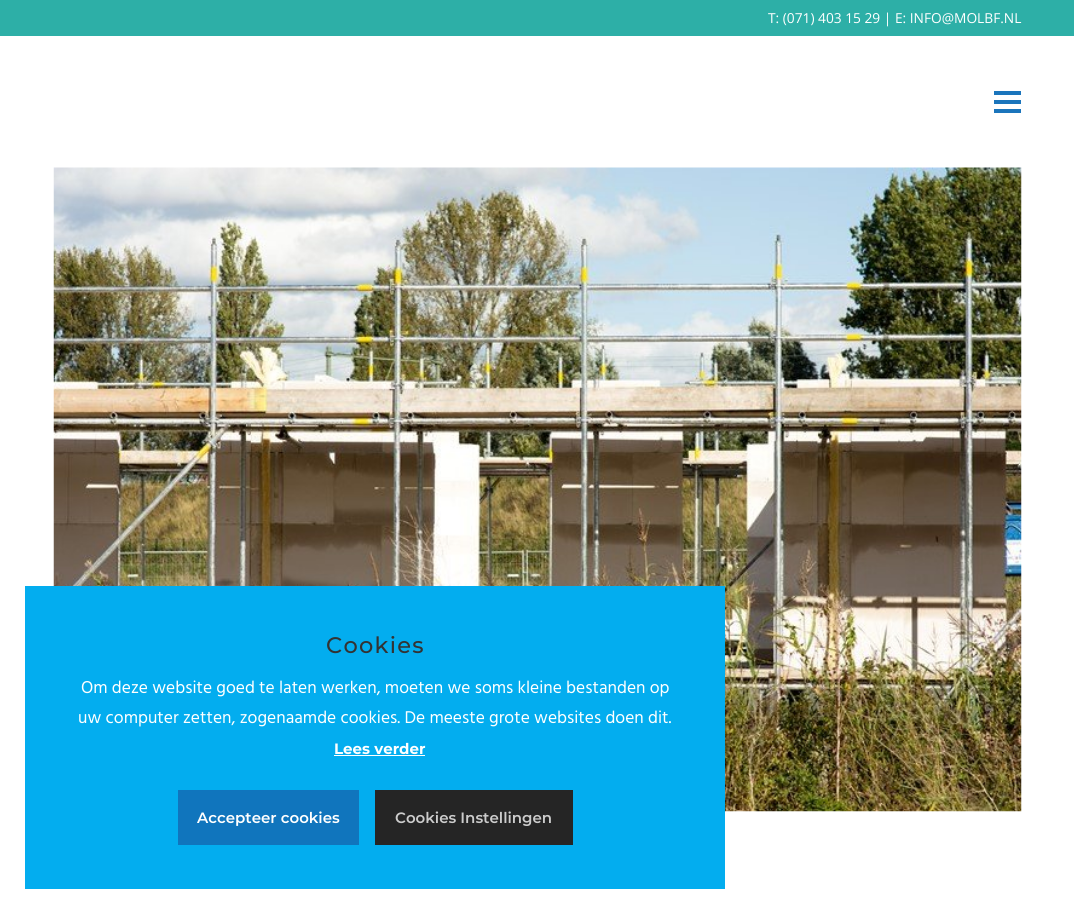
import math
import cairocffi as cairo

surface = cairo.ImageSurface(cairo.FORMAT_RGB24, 1074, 913)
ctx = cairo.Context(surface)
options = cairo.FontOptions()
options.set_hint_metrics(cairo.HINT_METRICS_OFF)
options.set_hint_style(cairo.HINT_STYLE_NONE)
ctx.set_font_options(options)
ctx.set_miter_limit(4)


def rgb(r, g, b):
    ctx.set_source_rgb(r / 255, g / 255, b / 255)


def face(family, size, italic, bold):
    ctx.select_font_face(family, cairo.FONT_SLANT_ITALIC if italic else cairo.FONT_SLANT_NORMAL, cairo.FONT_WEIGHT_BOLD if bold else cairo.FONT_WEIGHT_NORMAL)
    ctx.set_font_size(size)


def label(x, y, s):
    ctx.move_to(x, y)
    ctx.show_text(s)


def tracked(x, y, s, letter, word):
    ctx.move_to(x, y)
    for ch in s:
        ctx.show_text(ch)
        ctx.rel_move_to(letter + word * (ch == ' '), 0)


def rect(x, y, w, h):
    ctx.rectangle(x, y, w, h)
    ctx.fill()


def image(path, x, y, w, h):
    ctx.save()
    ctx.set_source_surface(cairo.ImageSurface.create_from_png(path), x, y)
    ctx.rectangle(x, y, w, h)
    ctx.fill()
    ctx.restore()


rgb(255, 255, 255)
ctx.paint()
rgb(45, 175, 167)
rect(0, 0, 1074, 36)
face('Open Sans', 13.75, 0, 0)
rgb(255, 255, 255)
label(768, 23, 'T: (071) 403 15 29 | E: INFO@MOLBF.NL')
rgb(27, 117, 188)
rect(994, 100, 27, 4)
rect(994, 91, 27, 4)
rect(994, 109, 27, 4)
image('image0.png', 53, 167, 969, 645)
rgb(3, 173, 239)
rect(25, 586, 700, 303)
face('Montserrat Medium', 22.5, 0, 0)
rgb(51, 51, 51)
tracked(326, 653, 'Cookies', 1.25, 0)
face('Hind', 17.5, 0, 0)
rgb(255, 255, 255)
label(81, 693, 'Om deze website goed te laten werken, moeten we soms kleine bestanden op')
label(78, 723, 'uw computer zetten, zogenaamde cookies. De meeste grote websites doen dit.')
face('Montserrat', 15, 0, 1)
label(334, 754, 'Lees verder')
rect(334, 755, 91, 1)
rgb(16, 117, 189)
rect(178, 790, 181, 55)
face('Montserrat SemiBold', 15, 0, 0)
rgb(255, 255, 255)
label(197, 823, 'Accepteer cookies')
rgb(37, 37, 37)
rect(375, 790, 198, 55)
rgb(204, 204, 204)
label(395, 823, 'Cookies Instellingen')
surface.write_to_png('render.png')
